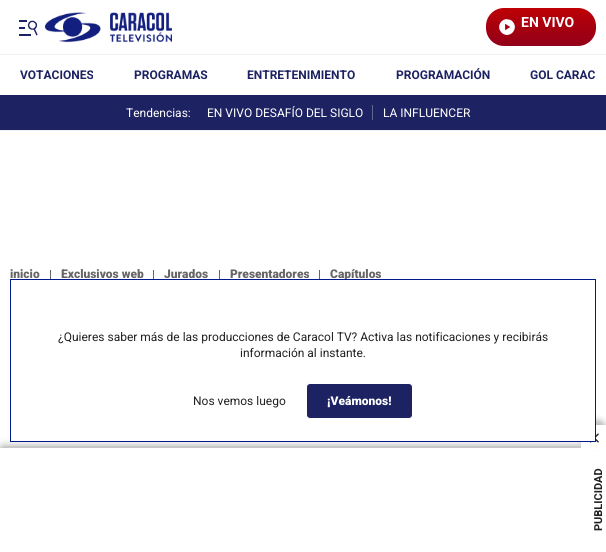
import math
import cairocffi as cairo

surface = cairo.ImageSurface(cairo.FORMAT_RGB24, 606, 552)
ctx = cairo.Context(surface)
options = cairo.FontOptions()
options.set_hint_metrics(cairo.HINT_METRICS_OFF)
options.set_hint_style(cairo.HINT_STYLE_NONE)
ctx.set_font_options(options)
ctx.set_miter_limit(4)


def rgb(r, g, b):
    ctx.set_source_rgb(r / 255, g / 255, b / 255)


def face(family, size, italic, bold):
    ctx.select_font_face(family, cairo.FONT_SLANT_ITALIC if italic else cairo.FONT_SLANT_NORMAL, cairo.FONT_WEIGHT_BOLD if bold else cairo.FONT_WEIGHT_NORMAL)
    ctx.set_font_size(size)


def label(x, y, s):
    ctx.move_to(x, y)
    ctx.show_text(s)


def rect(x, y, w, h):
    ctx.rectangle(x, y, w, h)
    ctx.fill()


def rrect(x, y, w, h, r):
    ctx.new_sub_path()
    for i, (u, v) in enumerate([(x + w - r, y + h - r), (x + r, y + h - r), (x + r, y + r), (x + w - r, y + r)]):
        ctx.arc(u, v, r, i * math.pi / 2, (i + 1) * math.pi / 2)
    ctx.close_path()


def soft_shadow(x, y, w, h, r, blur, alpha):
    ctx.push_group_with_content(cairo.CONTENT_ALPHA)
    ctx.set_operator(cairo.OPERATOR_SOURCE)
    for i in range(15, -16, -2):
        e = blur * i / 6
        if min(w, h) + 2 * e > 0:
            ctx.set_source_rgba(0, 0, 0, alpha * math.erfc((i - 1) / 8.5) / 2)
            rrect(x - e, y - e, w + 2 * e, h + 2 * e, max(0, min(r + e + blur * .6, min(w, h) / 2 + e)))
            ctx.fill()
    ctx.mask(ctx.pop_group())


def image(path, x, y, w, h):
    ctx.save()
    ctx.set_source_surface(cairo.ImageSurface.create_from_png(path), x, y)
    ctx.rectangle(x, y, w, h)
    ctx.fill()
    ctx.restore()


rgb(255, 255, 255)
ctx.paint()
rgb(241, 241, 241)
rect(0, 54, 606, 1)
image('image0.png', 19, 20, 19, 16)
image('image1.png', 45, 12, 127, 31)
gradient = cairo.LinearGradient(541, 8, 541, 46)
gradient.add_color_stop_rgba(0, 0.741, 0, 0.02, 1)
gradient.add_color_stop_rgba(1, 0.569, 0, 0.098, 1)
ctx.set_source(gradient)
rrect(486, 8, 110, 38, 18)
ctx.fill()
image('image2.png', 499, 19, 16, 16)
face('Roboto', 14, 0, 1)
rgb(255, 255, 255)
label(521, 27, 'EN VIVO')
face('Roboto', 12, 0, 1)
rgb(29, 35, 98)
label(20, 79, 'VOTACIONES')
label(134, 79, 'PROGRAMAS')
label(247, 79, 'ENTRETENIMIENTO')
label(396, 79, 'PROGRAMACIÓN')
label(530, 79, 'GOL CARAC')
rect(0, 95, 606, 35)
rgb(241, 241, 241)
rect(0, 130, 606, 1)
face('Roboto', 12, 0, 0)
rgb(255, 255, 255)
label(126, 117, 'Tendencias:')
label(207, 117, 'EN VIVO DESAFÍO DEL SIGLO')
rgb(97, 101, 145)
rect(372, 105, 1, 15)
rgb(255, 255, 255)
label(383, 117, 'LA INFLUENCER')
rgb(102, 102, 102)
rect(50, 270, 1, 9)
face('Roboto Black', 12, 0, 0)
label(10, 278, 'inicio')
rect(153, 270, 1, 9)
label(61, 278, 'Exclusivos web')
rect(219, 270, 1, 9)
label(164, 278, 'Jurados')
rect(319, 270, 1, 9)
label(230, 278, 'Presentadores')
label(330, 278, 'Capítulos')
rgb(33, 33, 33)
soft_shadow(3, 451, 600, 98, 0, 6, 1)
rgb(255, 255, 255)
rect(0, 448, 606, 104)
rgb(33, 33, 33)
soft_shadow(581, 420, 25, 25, 7, 3, 0.3)
rgb(255, 255, 255)
rect(581, 425, 25, 25)
image('image3.png', 590, 433, 9, 10)
ctx.rectangle(10.5, 279.5, 585, 162)
ctx.fill_preserve()
rgb(0, 25, 139)
ctx.set_line_width(1)
ctx.stroke()
face('Roboto', 12, 0, 0)
rgb(33, 33, 33)
label(58, 341, '¿Quieres saber más de las producciones de Caracol TV? Activa las notificaciones y recibirás')
label(240, 357, 'información al instante.')
label(193, 405, 'Nos vemos luego')
rgb(29, 35, 98)
rrect(306.5, 383.5, 106, 35, 3.5)
ctx.fill_preserve()
rgb(255, 255, 255)
ctx.stroke()
face('Roboto Black', 12, 0, 0)
label(327, 405, '¡Veámonos!')
face('Roboto', 11, 0, 1)
rgb(33, 33, 33)
ctx.save()
ctx.translate(602, 531)
ctx.rotate(-90 * math.pi / 180)
label(0, 0, 'PUBLICIDAD')
ctx.restore()
surface.write_to_png('render.png')
